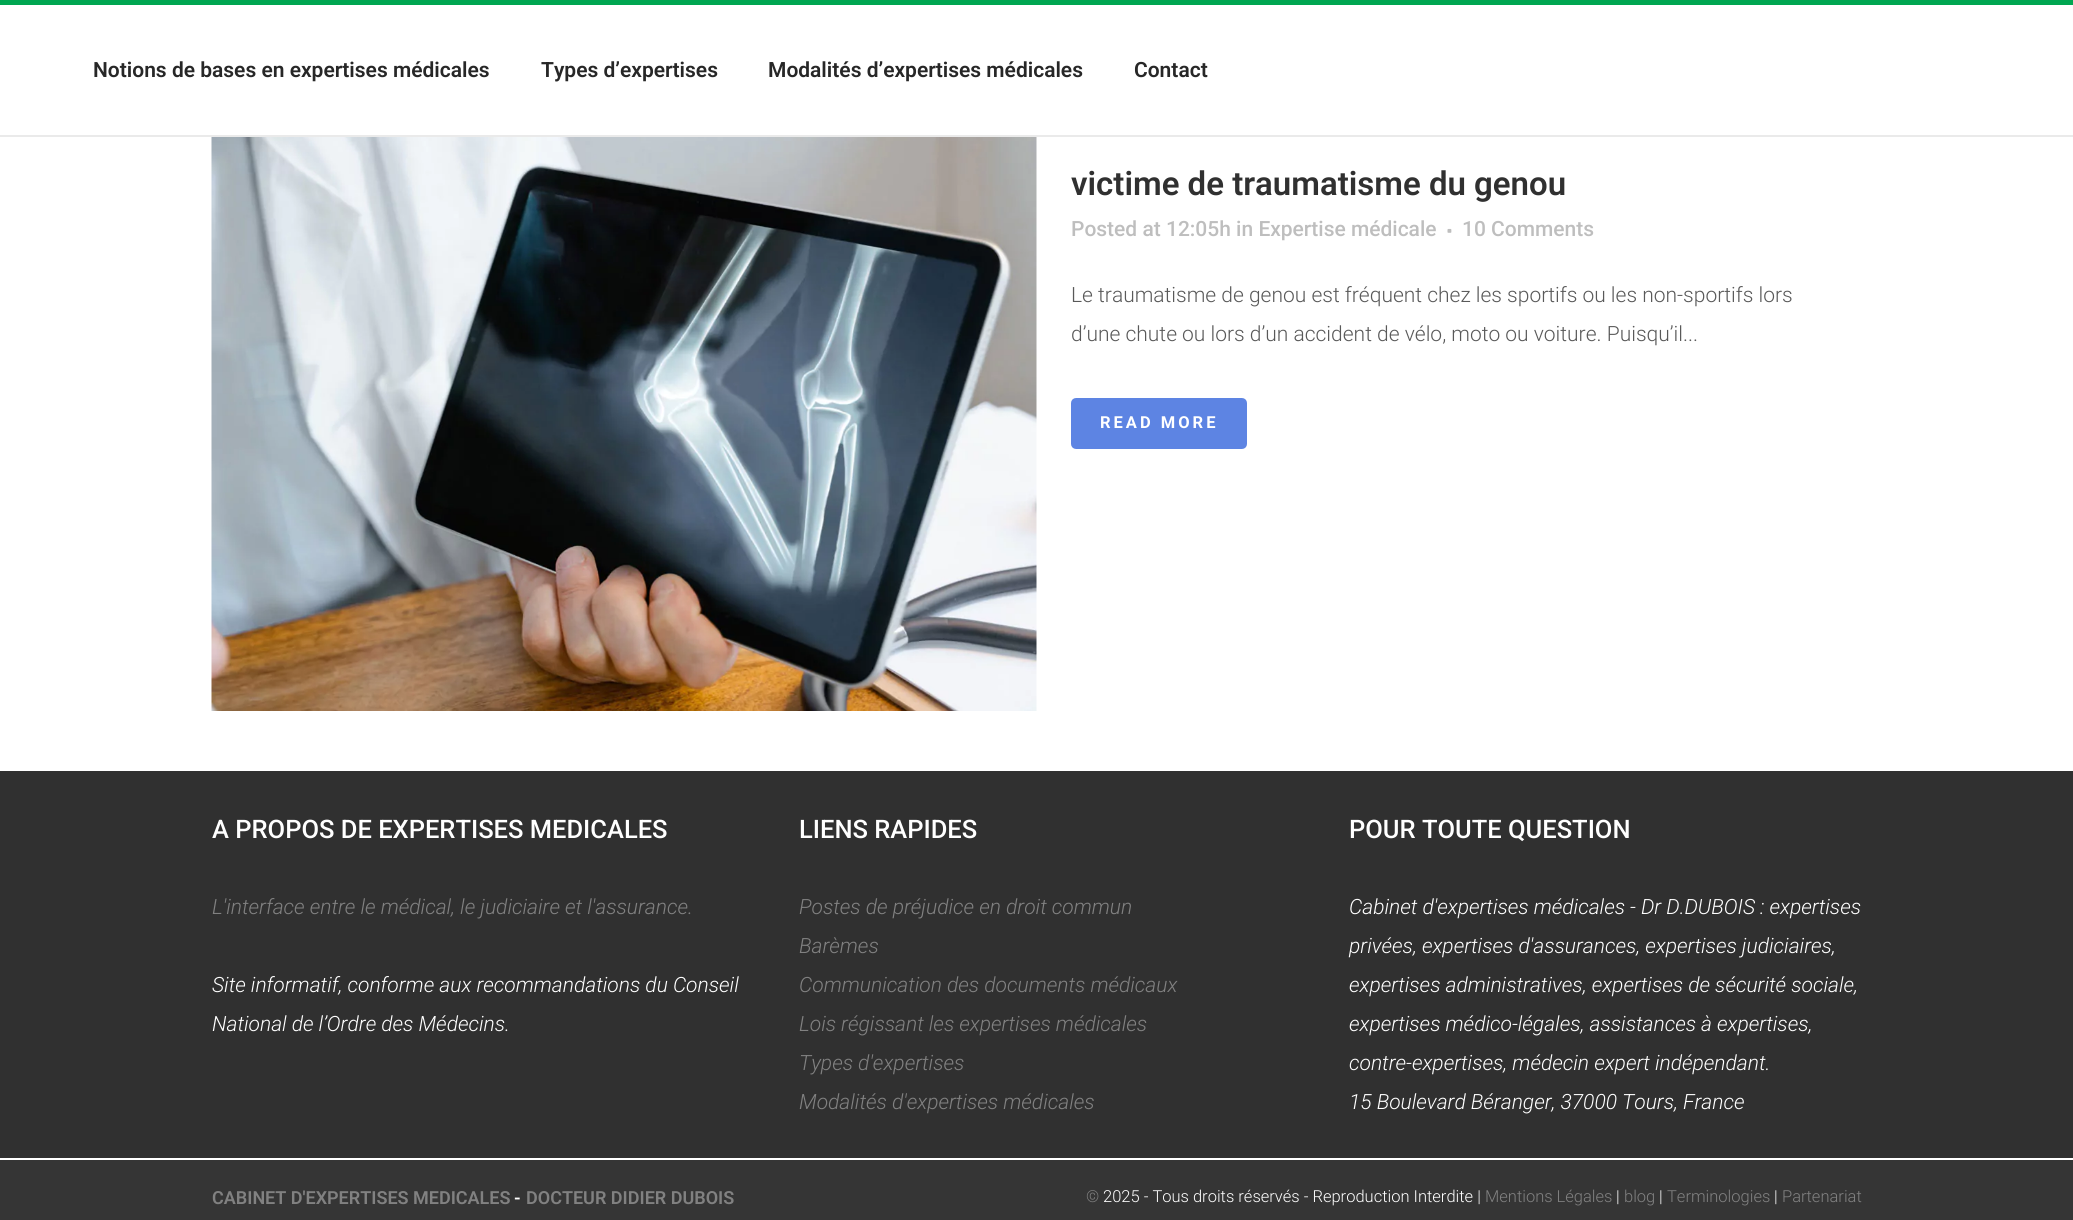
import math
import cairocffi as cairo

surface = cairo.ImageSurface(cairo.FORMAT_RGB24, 2073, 1220)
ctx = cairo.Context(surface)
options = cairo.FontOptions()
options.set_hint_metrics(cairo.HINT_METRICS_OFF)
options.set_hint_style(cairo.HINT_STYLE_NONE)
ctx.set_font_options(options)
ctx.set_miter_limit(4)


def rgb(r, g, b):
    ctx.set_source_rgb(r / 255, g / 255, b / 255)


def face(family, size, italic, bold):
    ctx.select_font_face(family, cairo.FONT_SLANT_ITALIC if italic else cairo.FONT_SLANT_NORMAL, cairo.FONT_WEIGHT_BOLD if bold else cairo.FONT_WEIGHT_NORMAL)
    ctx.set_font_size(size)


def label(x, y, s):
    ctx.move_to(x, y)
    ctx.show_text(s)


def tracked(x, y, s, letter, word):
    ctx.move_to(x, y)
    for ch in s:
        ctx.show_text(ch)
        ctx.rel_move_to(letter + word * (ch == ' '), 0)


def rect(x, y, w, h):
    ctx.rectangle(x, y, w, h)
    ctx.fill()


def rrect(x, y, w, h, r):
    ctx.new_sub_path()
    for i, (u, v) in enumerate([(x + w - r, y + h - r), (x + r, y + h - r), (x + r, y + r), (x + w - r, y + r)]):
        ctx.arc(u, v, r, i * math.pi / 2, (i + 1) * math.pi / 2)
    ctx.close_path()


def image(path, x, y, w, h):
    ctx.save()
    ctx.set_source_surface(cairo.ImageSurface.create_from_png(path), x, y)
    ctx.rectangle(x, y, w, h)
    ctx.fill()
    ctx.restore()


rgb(255, 255, 255)
ctx.paint()
rgb(0, 166, 81)
rect(0, 0, 2073, 5)
rgb(234, 234, 234)
rect(0, 135, 2073, 2)
face('Roboto SemiBold', 21, 0, 0)
rgb(39, 39, 39)
label(93, 77, 'Notions de bases en expertises médicales')
label(541, 77, 'Types d’expertises')
label(768, 77, 'Modalités d’expertises médicales')
label(1134, 77, 'Contact')
image('image0.png', 211, 137, 826, 574)
face('Roboto SemiBold', 33, 0, 0)
rgb(48, 48, 48)
label(1071, 195, 'victime de traumatisme du genou')
face('Roboto Medium', 21, 0, 0)
rgb(190, 190, 190)
label(1071, 236, 'Posted at 12:05h in Expertise médicale')
image('image1.png', 1447, 228, 5, 5)
label(1462, 236, '10 Comments')
face('Roboto Light', 21, 0, 0)
rgb(89, 89, 89)
label(1071, 302, 'Le traumatisme de genou est fréquent chez les sportifs ou les non-sportifs lors')
label(1071, 341, 'd’une chute ou lors d’un accident de vélo, moto ou voiture. Puisqu’il...')
rgb(93, 132, 227)
rrect(1072.5, 399.5, 173, 48, 3.5)
ctx.fill_preserve()
ctx.set_line_width(3)
ctx.stroke()
face('Roboto', 16.5, 0, 1)
rgb(255, 255, 255)
tracked(1100, 428, 'READ MORE', 3, 0)
rgb(48, 48, 48)
rect(0, 771, 2073, 387)
face('Roboto Medium', 25.5, 0, 0)
rgb(255, 255, 255)
label(212, 838, 'A PROPOS DE EXPERTISES MEDICALES')
face('Roboto Light', 21, 1, 0)
rgb(129, 129, 129)
label(212, 914, 'L\'interface entre le médical, le judiciaire et l\'assurance.')
rgb(255, 255, 255)
label(212, 992, 'Site informatif, conforme aux recommandations du Conseil')
label(212, 1031, 'National de l’Ordre des Médecins.')
face('Roboto Medium', 25.5, 0, 0)
label(799, 838, 'LIENS RAPIDES')
face('Roboto Light', 21, 1, 0)
rgb(129, 129, 129)
label(799, 914, 'Postes de préjudice en droit commun')
label(799, 953, 'Barèmes')
label(799, 992, 'Communication des documents médicaux')
label(799, 1031, 'Lois régissant les expertises médicales')
label(799, 1070, 'Types d\'expertises')
label(799, 1109, 'Modalités d\'expertises médicales')
face('Roboto Medium', 25.5, 0, 0)
rgb(255, 255, 255)
label(1349, 838, 'POUR TOUTE QUESTION')
face('Roboto Light', 21, 1, 0)
label(1349, 914, 'Cabinet d\'expertises médicales - Dr D.DUBOIS : expertises')
label(1349, 953, 'privées, expertises d\'assurances, expertises judiciaires,')
label(1349, 992, 'expertises administratives, expertises de sécurité sociale,')
label(1349, 1031, 'expertises médico-légales, assistances à expertises,')
label(1349, 1070, 'contre-expertises, médecin expert indépendant.')
label(1349, 1109, '15 Boulevard Béranger, 37000 Tours, France')
rgb(53, 53, 53)
rect(0, 1160, 2073, 60)
face('Roboto SemiBold', 18, 0, 0)
rgb(129, 129, 129)
label(212, 1204, 'CABINET D\'EXPERTISES MEDICALES')
rgb(255, 255, 255)
label(514, 1204, '-')
rgb(129, 129, 129)
label(526, 1204, 'DOCTEUR DIDIER DUBOIS')
face('Roboto Light', 16.5, 0, 0)
label(1086, 1202, '©')
rgb(255, 255, 255)
label(1103, 1202, '2025 - Tous droits réservés - Reproduction Interdite |')
rgb(129, 129, 129)
label(1485, 1202, 'Mentions Légales')
rgb(255, 255, 255)
label(1616, 1202, '|')
rgb(129, 129, 129)
label(1624, 1202, 'blog')
rgb(255, 255, 255)
label(1659, 1202, '|')
rgb(129, 129, 129)
label(1667, 1202, 'Terminologies')
rgb(255, 255, 255)
label(1774, 1202, '|')
rgb(129, 129, 129)
label(1782, 1202, 'Partenariat')
surface.write_to_png('render.png')
